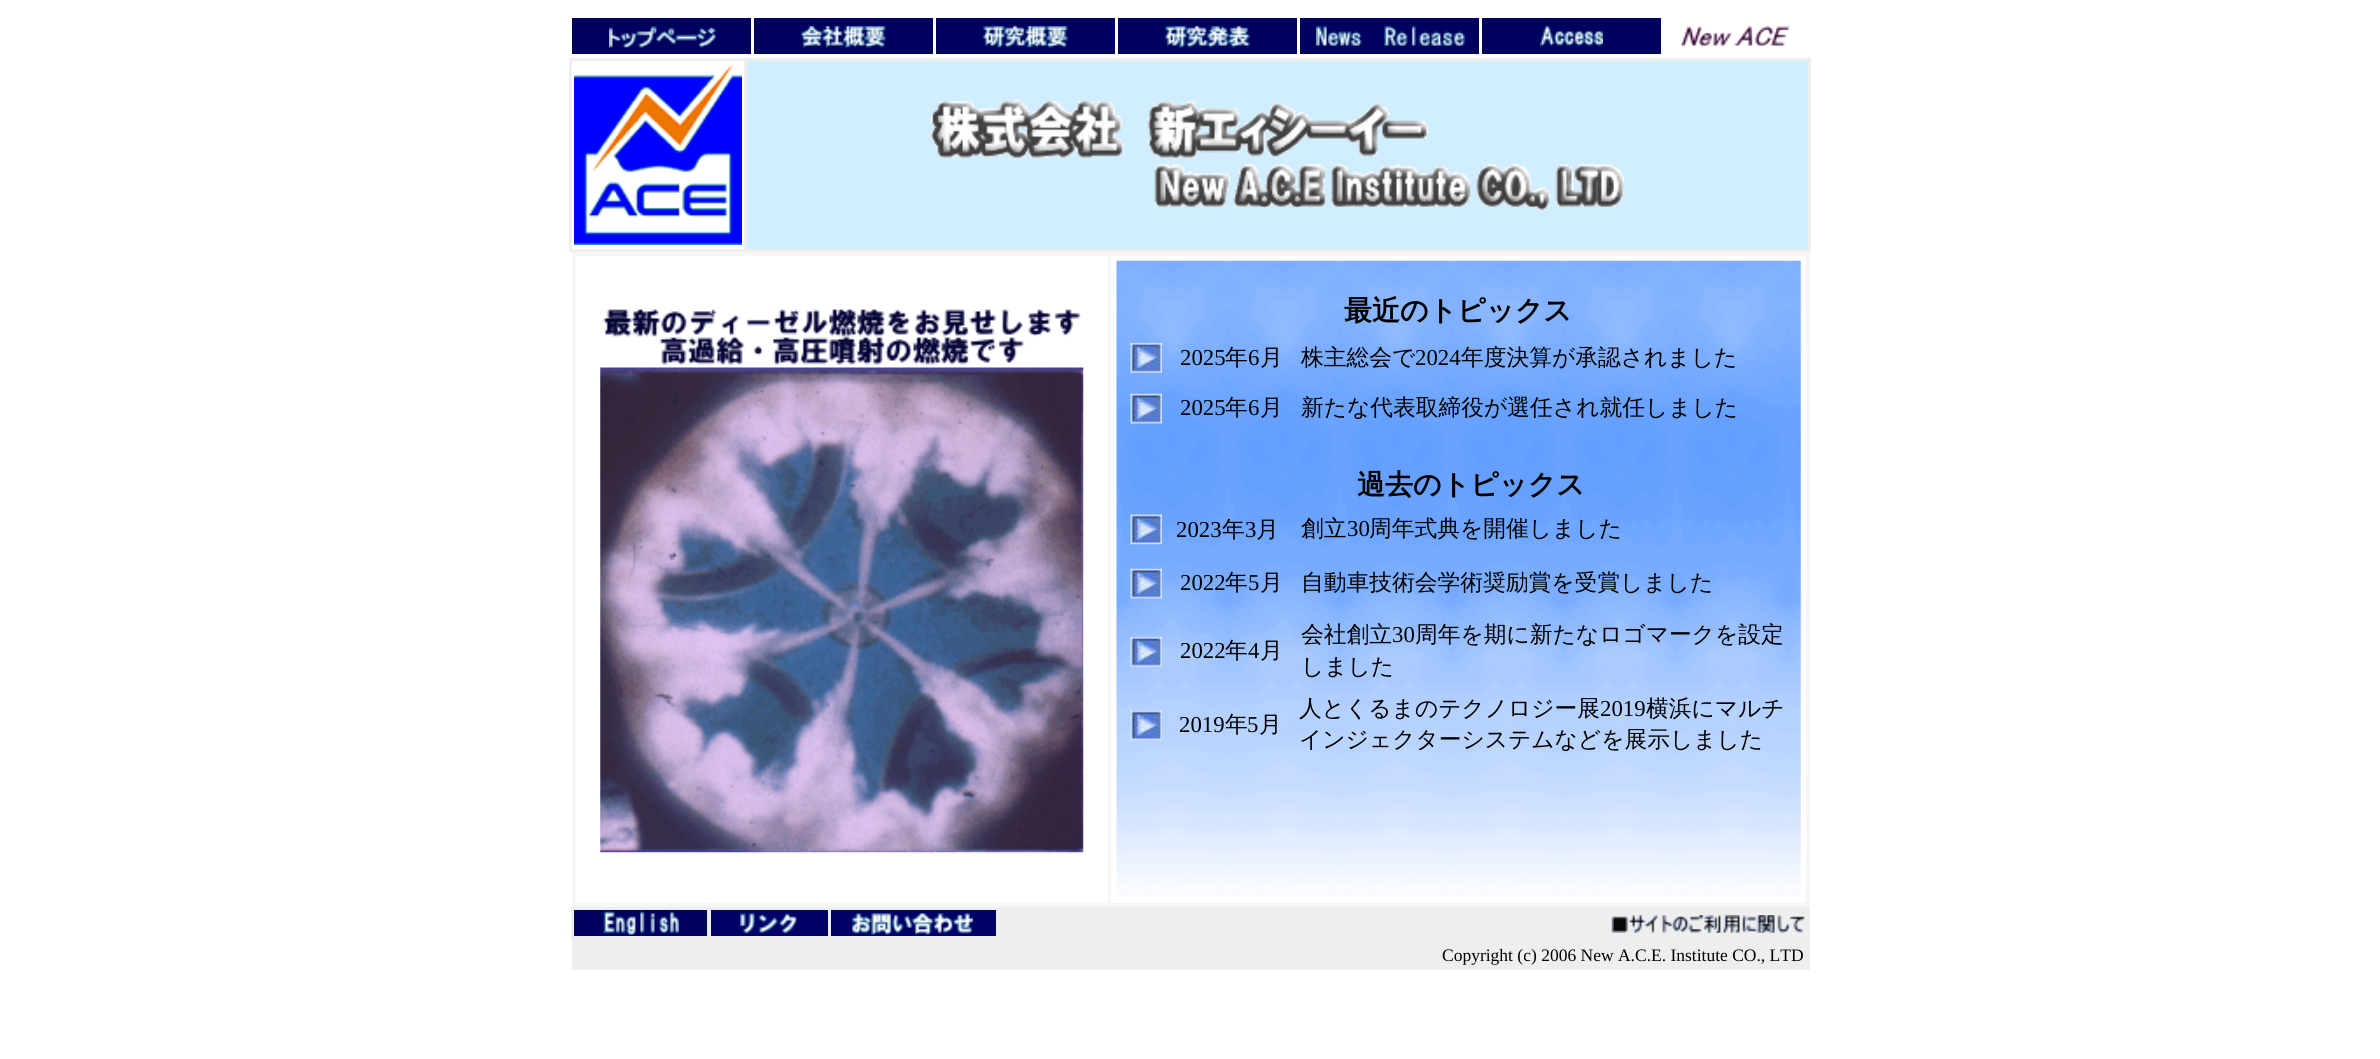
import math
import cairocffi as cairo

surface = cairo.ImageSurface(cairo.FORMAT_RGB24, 2380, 1059)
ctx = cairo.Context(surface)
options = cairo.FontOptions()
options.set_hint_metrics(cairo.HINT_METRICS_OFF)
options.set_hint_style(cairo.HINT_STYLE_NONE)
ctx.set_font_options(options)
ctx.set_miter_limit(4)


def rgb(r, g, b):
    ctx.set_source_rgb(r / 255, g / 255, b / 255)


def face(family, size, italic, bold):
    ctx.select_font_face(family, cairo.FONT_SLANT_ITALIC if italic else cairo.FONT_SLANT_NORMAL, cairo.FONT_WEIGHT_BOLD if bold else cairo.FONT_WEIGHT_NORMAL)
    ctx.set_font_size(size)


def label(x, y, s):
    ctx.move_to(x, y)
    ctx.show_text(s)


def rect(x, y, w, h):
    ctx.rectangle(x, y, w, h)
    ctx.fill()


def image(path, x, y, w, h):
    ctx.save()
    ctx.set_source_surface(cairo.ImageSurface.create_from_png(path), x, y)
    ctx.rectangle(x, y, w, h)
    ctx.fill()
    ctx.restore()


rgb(255, 255, 255)
ctx.paint()
rgb(0, 0, 94)
rect(572, 18, 179, 36)
image('image0.png', 609, 26, 107, 22)
rect(754, 18, 179, 36)
image('image1.png', 801, 26, 85, 22)
rect(936, 18, 179, 36)
image('image2.png', 983, 26, 85, 22)
rect(1118, 18, 179, 36)
image('image3.png', 1165, 26, 85, 22)
rect(1300, 18, 179, 36)
image('image4.png', 1316, 26, 149, 20)
rect(1482, 18, 179, 36)
image('image5.png', 1540, 26, 63, 20)
image('image6.png', 1681, 26, 109, 20)
rgb(238, 238, 238)
rect(569, 58, 1242, 194)
rgb(255, 255, 255)
rect(572, 61, 172, 188)
image('image7.png', 574, 64, 168, 181)
rgb(208, 238, 255)
rect(747, 61, 1061, 188)
image('image8.png', 931, 99, 693, 111)
rgb(246, 246, 246)
rect(572, 252, 1238, 655)
rgb(255, 255, 255)
rect(576, 256, 532, 647)
image('image9.png', 603, 309, 478, 56)
image('image10.png', 600, 367, 484, 486)
rect(1111, 256, 695, 647)
image('image11.png', 1116, 260, 685, 637)
face('WenQuanYi Zen Hei', 28, 0, 1)
rgb(0, 0, 0)
label(1344, 320, '最近のトピックス')
image('image12.png', 1130, 343, 32, 30)
face('Liberation Serif', 22.75, 0, 0)
label(1180, 365, '2025')
face('WenQuanYi Zen Hei Medium', 22.75, 0, 0)
label(1225, 365, '年')
face('Liberation Serif', 22.75, 0, 0)
label(1248, 365, '6')
face('WenQuanYi Zen Hei Medium', 22.75, 0, 0)
label(1260, 365, '月')
label(1301, 365, '株主総会で')
face('Liberation Serif', 22.75, 0, 0)
label(1415, 365, '2024')
face('WenQuanYi Zen Hei Medium', 22.75, 0, 0)
label(1461, 365, '年度決算が承認されました')
image('image13.png', 1130, 393, 32, 31)
face('Liberation Serif', 22.75, 0, 0)
label(1180, 415, '2025')
face('WenQuanYi Zen Hei Medium', 22.75, 0, 0)
label(1225, 415, '年')
face('Liberation Serif', 22.75, 0, 0)
label(1248, 415, '6')
face('WenQuanYi Zen Hei Medium', 22.75, 0, 0)
label(1260, 415, '月')
label(1301, 415, '新たな代表取締役が選任され就任しました')
face('WenQuanYi Zen Hei', 28, 0, 1)
label(1357, 494, '過去のトピックス')
image('image14.png', 1130, 514, 32, 31)
face('Liberation Serif', 22.75, 0, 0)
label(1176, 537, '2023')
face('WenQuanYi Zen Hei Medium', 22.75, 0, 0)
label(1222, 537, '年')
face('Liberation Serif', 22.75, 0, 0)
label(1245, 537, '3')
face('WenQuanYi Zen Hei Medium', 22.75, 0, 0)
label(1256, 537, '月')
label(1301, 536, '創立')
face('Liberation Serif', 22.75, 0, 0)
label(1347, 536, '30')
face('WenQuanYi Zen Hei Medium', 22.75, 0, 0)
label(1369, 536, '周年式典を開催しました')
image('image15.png', 1130, 568, 32, 31)
face('Liberation Serif', 22.75, 0, 0)
label(1180, 590, '2022')
face('WenQuanYi Zen Hei Medium', 22.75, 0, 0)
label(1225, 590, '年')
face('Liberation Serif', 22.75, 0, 0)
label(1248, 590, '5')
face('WenQuanYi Zen Hei Medium', 22.75, 0, 0)
label(1260, 590, '月')
label(1301, 590, '自動車技術会学術奨励賞を受賞しました')
image('image16.png', 1130, 637, 32, 30)
face('Liberation Serif', 22.75, 0, 0)
label(1180, 658, '2022')
face('WenQuanYi Zen Hei Medium', 22.75, 0, 0)
label(1225, 658, '年')
face('Liberation Serif', 22.75, 0, 0)
label(1248, 658, '4')
face('WenQuanYi Zen Hei Medium', 22.75, 0, 0)
label(1260, 658, '月')
label(1301, 642, '会社創立')
face('Liberation Serif', 22.75, 0, 0)
label(1392, 642, '30')
face('WenQuanYi Zen Hei Medium', 22.75, 0, 0)
label(1415, 642, '周年を期に新たなロゴマークを設定')
label(1301, 674, 'しました')
image('image17.png', 1130, 710, 32, 31)
face('Liberation Serif', 22.75, 0, 0)
label(1179, 732, '2019')
face('WenQuanYi Zen Hei Medium', 22.75, 0, 0)
label(1225, 732, '年')
face('Liberation Serif', 22.75, 0, 0)
label(1247, 732, '5')
face('WenQuanYi Zen Hei Medium', 22.75, 0, 0)
label(1259, 732, '月')
label(1299, 716, '人とくるまのテクノロジー展')
face('Liberation Serif', 22.75, 0, 0)
label(1600, 716, '2019')
face('WenQuanYi Zen Hei Medium', 22.75, 0, 0)
label(1646, 716, '横浜にマルチ')
label(1299, 747, 'インジェクターシステムなどを展示しました')
rgb(238, 238, 238)
rect(571, 907, 1239, 33)
rgb(0, 0, 94)
rect(574, 910, 133, 26)
image('image18.png', 603, 911, 76, 24)
rgb(0, 0, 102)
rect(711, 910, 117, 26)
image('image19.png', 740, 913, 57, 20)
rect(831, 910, 165, 26)
image('image20.png', 852, 913, 121, 22)
image('image21.png', 1611, 915, 194, 18)
rgb(238, 238, 238)
rect(572, 940, 1238, 30)
face('Liberation Serif', 17.5, 0, 0)
rgb(0, 0, 0)
label(1442, 961, 'Copyright (c) 2006 New A.C.E. Institute CO., LTD')
surface.write_to_png('render.png')
